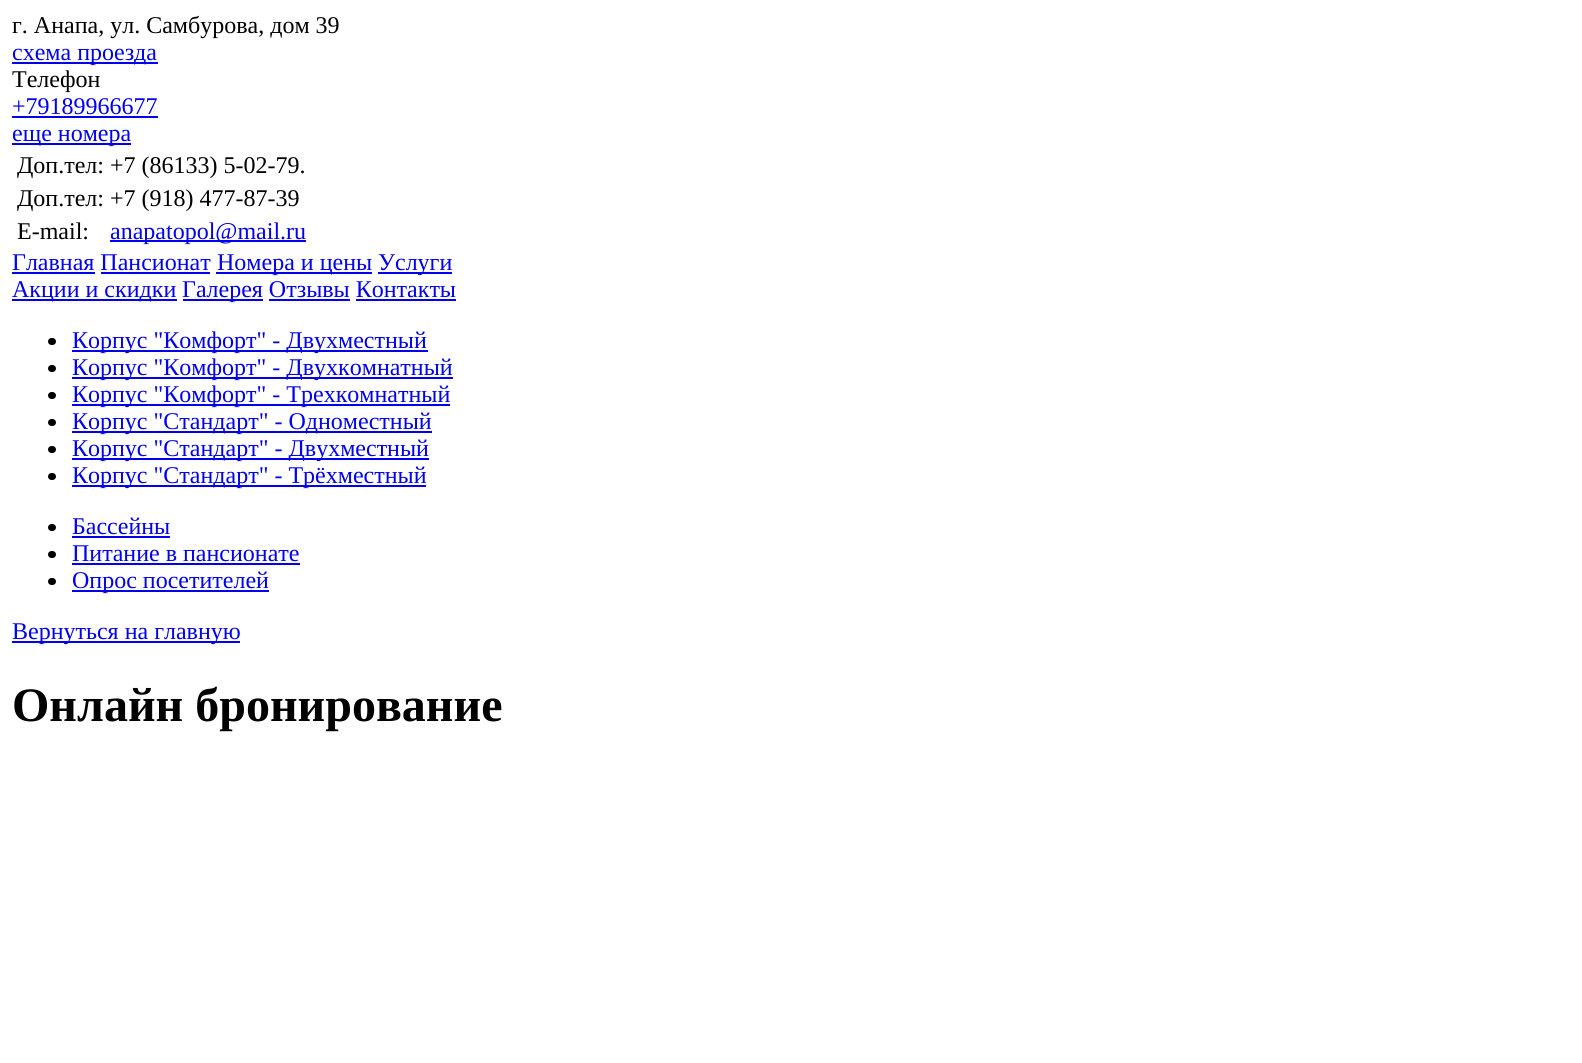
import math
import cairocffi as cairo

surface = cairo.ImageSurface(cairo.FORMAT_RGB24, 1582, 1063)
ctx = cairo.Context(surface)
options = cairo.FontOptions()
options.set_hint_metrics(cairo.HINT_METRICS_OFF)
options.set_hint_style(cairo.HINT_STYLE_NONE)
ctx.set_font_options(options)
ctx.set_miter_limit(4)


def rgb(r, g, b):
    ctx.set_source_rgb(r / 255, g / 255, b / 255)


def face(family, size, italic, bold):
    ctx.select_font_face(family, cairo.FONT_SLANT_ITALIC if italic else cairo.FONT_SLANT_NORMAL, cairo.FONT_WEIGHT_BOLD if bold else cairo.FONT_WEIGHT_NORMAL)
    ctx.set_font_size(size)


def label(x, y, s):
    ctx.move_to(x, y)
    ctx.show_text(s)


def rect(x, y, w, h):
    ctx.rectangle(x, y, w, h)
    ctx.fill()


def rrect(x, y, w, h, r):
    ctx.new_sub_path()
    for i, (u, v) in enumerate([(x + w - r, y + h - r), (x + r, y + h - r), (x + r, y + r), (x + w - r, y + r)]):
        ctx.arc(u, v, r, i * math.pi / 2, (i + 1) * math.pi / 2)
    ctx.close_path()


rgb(255, 255, 255)
ctx.paint()
face('Liberation Serif', 24, 0, 0)
rgb(0, 0, 0)
label(12, 33, 'г. Анапа, ул. Самбурова, дом 39')
rgb(0, 0, 238)
rect(12, 62, 146, 2)
label(12, 60, 'схема проезда')
rgb(0, 0, 0)
label(12, 87, 'Телефон')
rgb(0, 0, 238)
label(12, 114, '+79189966677')
rect(12, 116, 146, 2)
rect(12, 143, 119, 2)
label(12, 141, 'еще номера')
rgb(0, 0, 0)
label(17, 173, 'Доп.тел: +7 (86133) 5-02-79.')
label(17, 206, 'Доп.тел: +7 (918) 477-87-39')
label(17, 239, 'E-mail:')
rgb(0, 0, 238)
rect(110, 240, 196, 2)
label(110, 239, 'anapatopol@mail.ru')
label(12, 270, 'Главная Пансионат')
rect(12, 272, 83, 2)
rect(216, 272, 156, 2)
label(217, 270, 'Номера и цены')
rect(378, 272, 74, 2)
label(378, 270, 'Услуги')
rect(101, 272, 109, 2)
rect(12, 299, 165, 2)
label(12, 297, 'Акции и скидки')
rect(183, 299, 80, 2)
label(182, 297, 'Галерея Отзывы Контакты')
rect(269, 299, 81, 2)
rect(356, 299, 100, 2)
rgb(0, 0, 0)
rrect(48, 338, 8, 7, 3.5)
ctx.fill()
rgb(0, 0, 238)
rect(72, 350, 356, 2)
label(72, 348, 'Корпус "Комфорт" - Двухместный')
rgb(0, 0, 0)
rrect(48, 365, 8, 7, 3.5)
ctx.fill()
rgb(0, 0, 238)
rect(72, 377, 381, 2)
label(72, 375, 'Корпус "Комфорт" - Двухкомнатный')
rgb(0, 0, 0)
rrect(48, 392, 8, 7, 3.5)
ctx.fill()
rgb(0, 0, 238)
rect(72, 404, 378, 2)
label(72, 402, 'Корпус "Комфорт" - Трехкомнатный')
rgb(0, 0, 0)
rrect(48, 419, 8, 7, 3.5)
ctx.fill()
rgb(0, 0, 238)
rect(72, 431, 360, 2)
label(72, 429, 'Корпус "Стандарт" - Одноместный')
rgb(0, 0, 0)
rrect(48, 446, 8, 7, 3.5)
ctx.fill()
rgb(0, 0, 238)
rect(72, 458, 357, 2)
label(72, 456, 'Корпус "Стандарт" - Двухместный')
rgb(0, 0, 0)
rrect(48, 473, 8, 7, 3.5)
ctx.fill()
rgb(0, 0, 238)
rect(72, 485, 354, 2)
label(72, 483, 'Корпус "Стандарт" - Трёхместный')
rgb(0, 0, 0)
rrect(48, 524, 8, 7, 3.5)
ctx.fill()
rgb(0, 0, 238)
label(72, 534, 'Бассейны')
rect(72, 536, 98, 2)
rgb(0, 0, 0)
rrect(48, 551, 8, 7, 3.5)
ctx.fill()
rgb(0, 0, 238)
label(72, 561, 'Питание в пансионате')
rect(72, 563, 228, 2)
rgb(0, 0, 0)
rrect(48, 578, 8, 7, 3.5)
ctx.fill()
rgb(0, 0, 238)
rect(72, 590, 197, 2)
label(72, 588, 'Опрос посетителей')
rect(12, 641, 228, 2)
label(12, 639, 'Вернуться на главную')
face('Liberation Serif', 48, 0, 1)
rgb(0, 0, 0)
label(12, 721, 'Онлайн бронирование')
surface.write_to_png('render.png')
